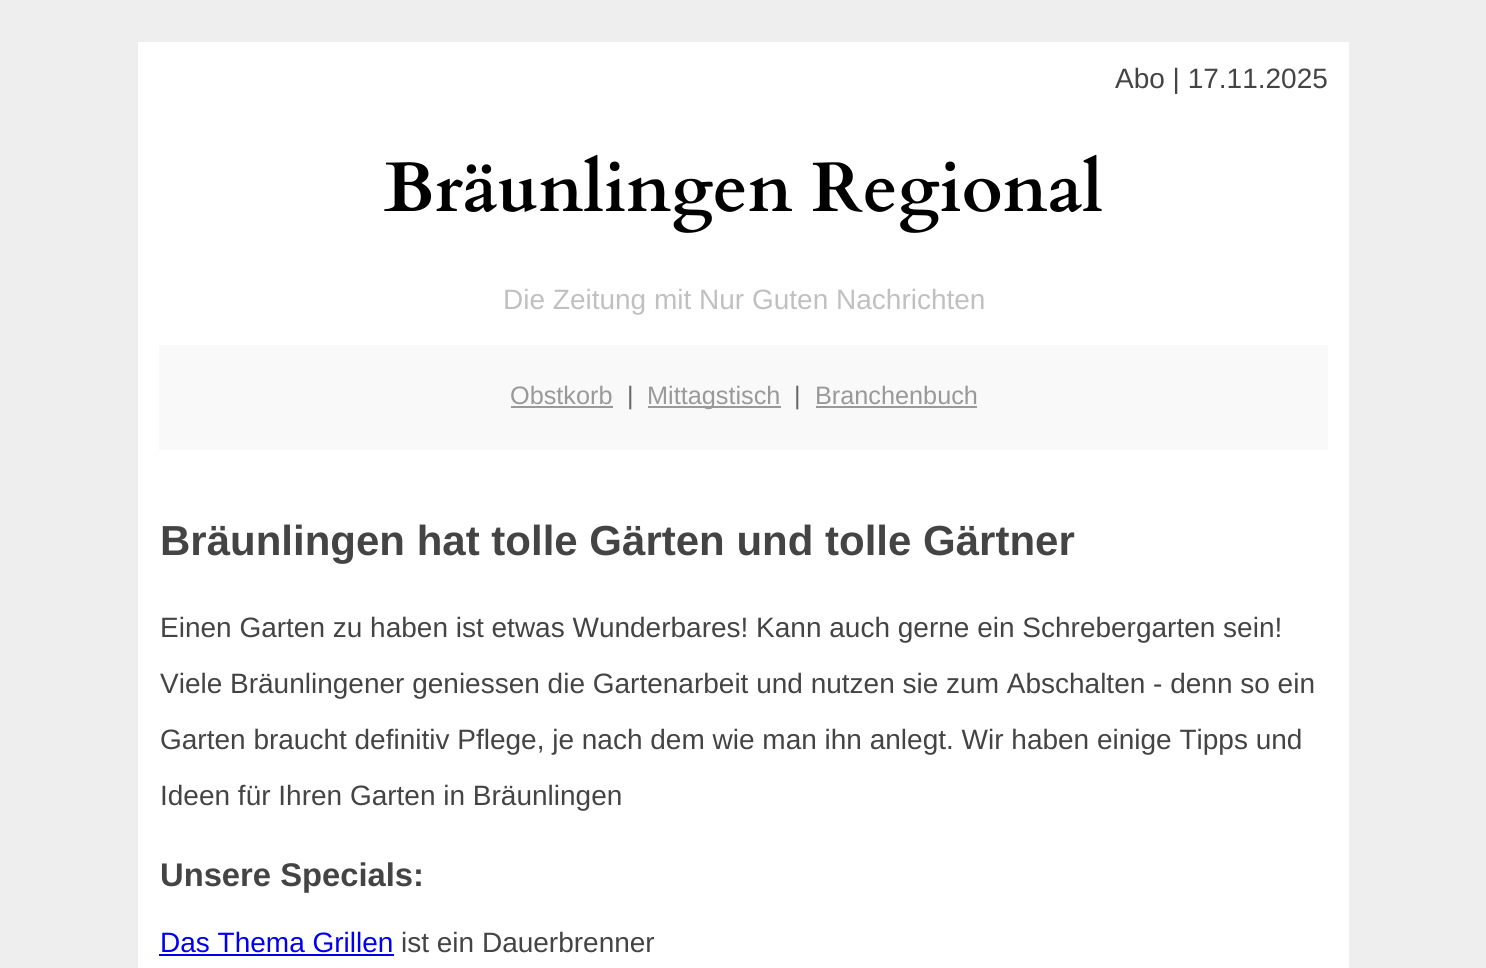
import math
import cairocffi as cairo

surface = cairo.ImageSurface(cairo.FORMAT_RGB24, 1486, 968)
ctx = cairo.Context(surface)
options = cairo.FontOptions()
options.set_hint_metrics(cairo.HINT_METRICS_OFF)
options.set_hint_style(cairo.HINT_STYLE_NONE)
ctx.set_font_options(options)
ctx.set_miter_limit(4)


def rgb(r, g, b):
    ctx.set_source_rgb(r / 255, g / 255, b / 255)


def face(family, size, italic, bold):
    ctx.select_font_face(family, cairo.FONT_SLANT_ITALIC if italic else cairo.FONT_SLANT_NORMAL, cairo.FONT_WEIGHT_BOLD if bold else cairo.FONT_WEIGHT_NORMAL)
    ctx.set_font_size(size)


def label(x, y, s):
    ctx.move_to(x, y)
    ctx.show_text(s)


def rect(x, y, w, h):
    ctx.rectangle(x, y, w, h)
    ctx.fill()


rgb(238, 238, 238)
ctx.paint()
rgb(255, 255, 255)
rect(138, 42, 1211, 926)
face('Liberation Sans', 28, 0, 0)
rgb(68, 68, 68)
label(1115, 88, 'Abo | 17.11.2025')
face('Cardo', 70, 0, 1)
rgb(0, 0, 0)
label(384, 211, 'Bräunlingen Regional')
face('Liberation Sans', 28, 0, 0)
rgb(192, 192, 192)
label(503, 309, 'Die Zeitung mit Nur Guten Nachrichten')
rgb(249, 249, 249)
rect(159, 345, 1169, 105)
face('Liberation Sans', 25.25, 0, 0)
rgb(153, 153, 153)
label(510, 404, 'Obstkorb')
rect(511, 406, 102, 2)
rgb(102, 102, 102)
label(627, 404, '|')
rgb(153, 153, 153)
rect(648, 406, 133, 2)
label(647, 404, 'Mittagstisch')
rgb(102, 102, 102)
label(794, 404, '|')
rgb(153, 153, 153)
label(815, 404, 'Branchenbuch')
rect(816, 406, 161, 2)
face('Liberation Sans', 42, 0, 1)
rgb(68, 68, 68)
label(160, 555, 'Bräunlingen hat tolle Gärten und tolle Gärtner')
face('Liberation Sans', 28, 0, 0)
label(160, 637, 'Einen Garten zu haben ist etwas Wunderbares! Kann auch gerne ein Schrebergarten sein!')
label(160, 693, 'Viele Bräunlingener geniessen die Gartenarbeit und nutzen sie zum Abschalten - denn so ein')
label(160, 749, 'Garten braucht definitiv Pflege, je nach dem wie man ihn anlegt. Wir haben einige Tipps und')
label(160, 805, 'Ideen für Ihren Garten in Bräunlingen')
face('Liberation Sans', 32.75, 0, 1)
label(160, 886, 'Unsere Specials:')
face('Liberation Sans', 28, 0, 0)
rgb(0, 0, 238)
label(160, 952, 'Das Thema Grillen')
rect(159, 954, 235, 2)
rgb(68, 68, 68)
label(401, 952, 'ist ein Dauerbrenner')
surface.write_to_png('render.png')
